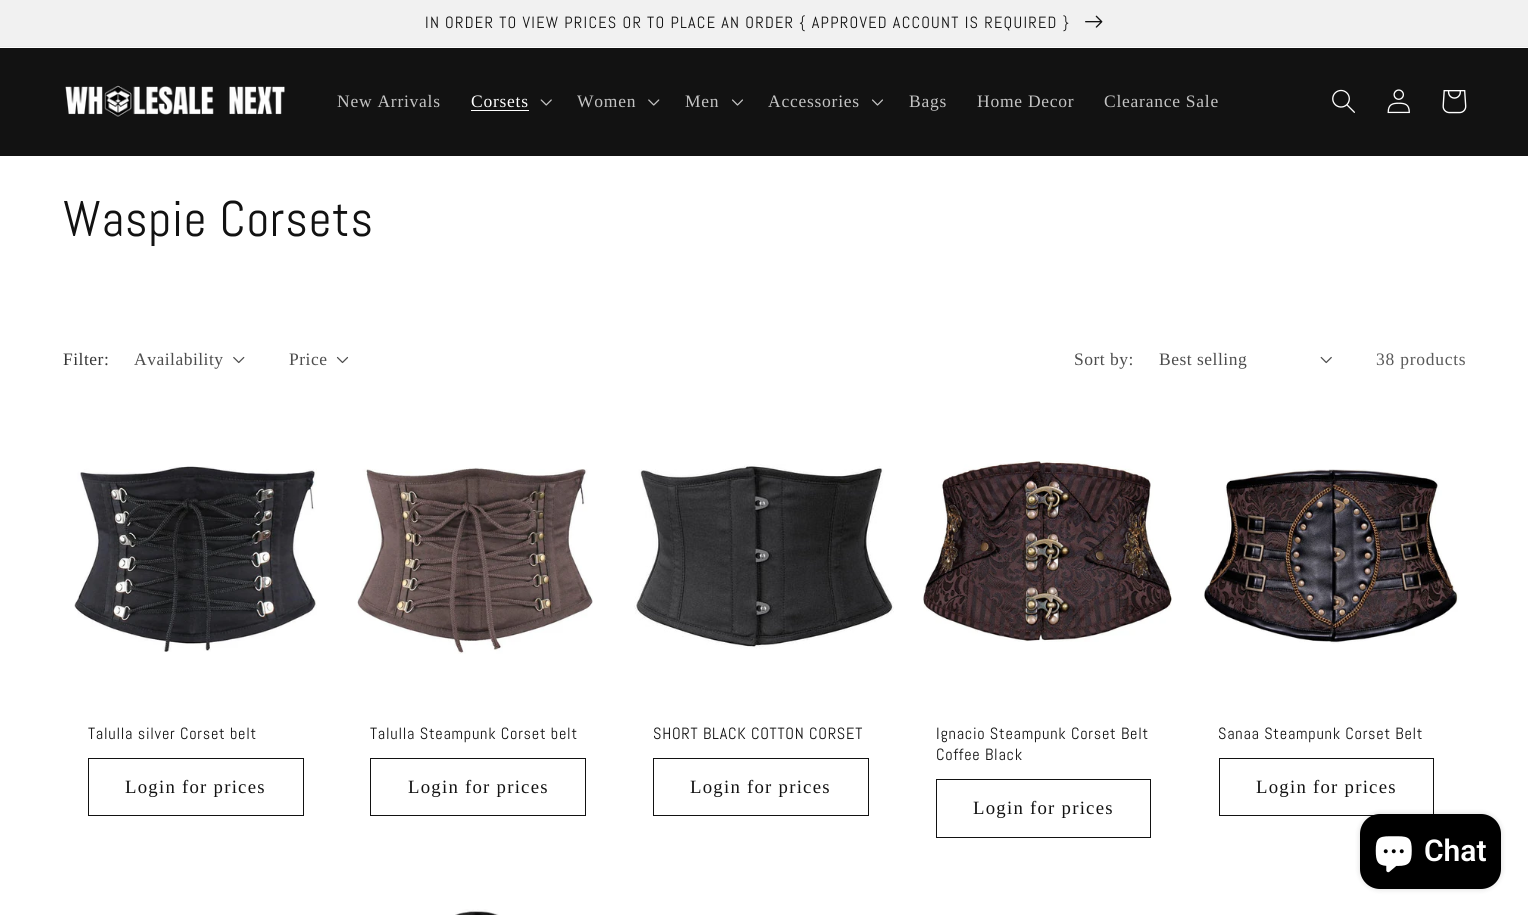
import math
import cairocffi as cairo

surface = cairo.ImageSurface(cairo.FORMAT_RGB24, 1528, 915)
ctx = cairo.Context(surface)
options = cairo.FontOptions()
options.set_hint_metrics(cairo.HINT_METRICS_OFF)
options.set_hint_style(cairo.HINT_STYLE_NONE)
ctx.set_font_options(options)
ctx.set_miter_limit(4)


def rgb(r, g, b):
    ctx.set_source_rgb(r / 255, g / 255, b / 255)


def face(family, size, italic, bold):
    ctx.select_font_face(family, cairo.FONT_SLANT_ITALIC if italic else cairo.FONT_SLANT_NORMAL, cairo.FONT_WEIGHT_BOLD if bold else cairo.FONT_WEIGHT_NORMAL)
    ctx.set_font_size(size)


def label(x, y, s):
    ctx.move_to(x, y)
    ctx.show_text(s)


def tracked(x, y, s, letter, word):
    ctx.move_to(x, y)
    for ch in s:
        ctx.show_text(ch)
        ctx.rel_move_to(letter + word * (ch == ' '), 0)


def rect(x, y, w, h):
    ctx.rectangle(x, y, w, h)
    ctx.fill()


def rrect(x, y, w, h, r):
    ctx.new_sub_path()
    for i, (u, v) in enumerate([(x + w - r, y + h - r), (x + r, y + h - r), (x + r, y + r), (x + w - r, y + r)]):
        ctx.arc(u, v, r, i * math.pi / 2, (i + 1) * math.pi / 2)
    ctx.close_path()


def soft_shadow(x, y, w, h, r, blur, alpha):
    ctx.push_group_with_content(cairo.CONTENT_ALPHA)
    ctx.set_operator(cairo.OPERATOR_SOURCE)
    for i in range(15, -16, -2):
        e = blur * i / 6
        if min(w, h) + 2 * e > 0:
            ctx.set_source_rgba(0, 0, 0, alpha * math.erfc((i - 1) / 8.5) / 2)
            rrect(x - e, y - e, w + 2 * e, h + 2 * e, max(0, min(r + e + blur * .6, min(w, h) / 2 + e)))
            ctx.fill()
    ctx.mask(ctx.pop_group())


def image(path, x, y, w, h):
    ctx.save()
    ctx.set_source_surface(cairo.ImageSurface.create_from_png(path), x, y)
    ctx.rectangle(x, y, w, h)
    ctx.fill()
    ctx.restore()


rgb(255, 255, 255)
ctx.paint()
rgb(236, 236, 236)
rect(0, 46, 1528, 1)
rgb(241, 241, 241)
rect(0, 0, 1528, 46)
face('Abel', 16.25, 0, 0)
rgb(18, 18, 18)
tracked(425, 28, 'IN ORDER TO VIEW PRICES OR TO PLACE AN ORDER { APPROVED ACCOUNT IS REQUIRED }', 1.25, 0)
image('image0.png', 1085, 15, 18, 13)
rect(0, 48, 1528, 108)
image('image1.png', 65, 85, 220, 33)
face('Liberation Serif', 17.5, 0, 0)
rgb(196, 196, 196)
tracked(337, 107, 'New Arrivals', 0.75, 0)
rgb(255, 255, 255)
tracked(471, 107, 'Corsets', 0.75, 0)
rect(471, 110, 58, 1)
image('image2.png', 540, 99, 12, 7)
rgb(196, 196, 196)
tracked(577, 107, 'Women', 0.75, 0)
image('image3.png', 648, 99, 12, 7)
tracked(685, 107, 'Men', 0.75, 0)
image('image4.png', 732, 99, 11, 7)
tracked(768, 107, 'Accessories', 0.75, 0)
image('image4.png', 872, 99, 11, 7)
tracked(909, 107, 'Bags', 0.75, 0)
tracked(977, 107, 'Home Decor', 0.75, 0)
tracked(1104, 107, 'Clearance Sale', 0.75, 0)
image('image5.png', 1332, 89, 23, 24)
image('image6.png', 1387, 89, 23, 25)
image('image7.png', 1442, 90, 25, 24)
face('Abel', 50, 0, 0)
rgb(18, 18, 18)
tracked(63, 236, 'Waspie Corsets', 0.75, 0)
face('Liberation Serif', 17.5, 0, 0)
rgb(54, 54, 54)
tracked(63, 365, 'Filter:', 0.5, 0)
rgb(77, 77, 77)
tracked(134, 365, 'Availability', 0.5, 0)
image('image8.png', 233, 356, 12, 8)
tracked(289, 365, 'Price', 0.5, 0)
image('image9.png', 336, 356, 13, 8)
tracked(1074, 365, 'Sort by:', 0.5, 0)
tracked(1159, 365, 'Best selling', 0.5, 0)
image('image10.png', 1320, 356, 12, 8)
rgb(89, 89, 89)
tracked(1376, 365, '38 products', 0.75, 0)
image('image11.png', 74, 466, 243, 186)
face('Abel', 16.25, 0, 0)
rgb(18, 18, 18)
tracked(88, 739, 'Talulla silver Corset belt', 0.75, 0)
ctx.rectangle(88.5, 758.5, 215, 57)
ctx.set_line_width(1)
ctx.stroke()
face('Liberation Serif', 18.75, 0, 0)
tracked(125, 793, 'Login for prices', 1.25, 0)
image('image12.png', 357, 467, 236, 187)
face('Abel', 16.25, 0, 0)
tracked(370, 739, 'Talulla Steampunk Corset belt', 0.75, 0)
ctx.rectangle(370.5, 758.5, 215, 57)
ctx.stroke()
face('Liberation Serif', 18.75, 0, 0)
tracked(408, 793, 'Login for prices', 1.25, 0)
image('image13.png', 634, 464, 260, 185)
face('Abel', 16.25, 0, 0)
tracked(653, 739, 'SHORT BLACK COTTON CORSET', 0.75, 0)
ctx.rectangle(653.5, 758.5, 215, 57)
ctx.stroke()
face('Liberation Serif', 18.75, 0, 0)
tracked(690, 793, 'Login for prices', 1.25, 0)
image('image14.png', 923, 460, 249, 182)
face('Abel', 16.25, 0, 0)
tracked(936, 739, 'Ignacio Steampunk Corset Belt', 0.75, 0)
tracked(936, 760, 'Coffee Black', 0.75, 0)
ctx.rectangle(936.5, 779.5, 214, 58)
ctx.stroke()
face('Liberation Serif', 18.75, 0, 0)
tracked(973, 814, 'Login for prices', 1.25, 0)
image('image15.png', 1204, 469, 255, 175)
face('Abel', 16.25, 0, 0)
tracked(1218, 739, 'Sanaa Steampunk Corset Belt', 0.75, 0)
ctx.rectangle(1219.5, 758.5, 214, 57)
ctx.stroke()
face('Liberation Serif', 18.75, 0, 0)
tracked(1256, 793, 'Login for prices', 1.25, 0)
image('image16.png', 455, 909, 44, 6)
rgb(0, 0, 0)
soft_shadow(1360, 814, 141, 75, 20, 3, 0.15)
rgb(0, 0, 0)
rrect(1360, 814, 141, 75, 20)
ctx.fill()
image('image17.png', 1375, 836, 37, 37)
face('Roboto SemiBold', 30, 0, 0)
rgb(255, 255, 255)
label(1424, 861, 'Chat')
surface.write_to_png('render.png')
